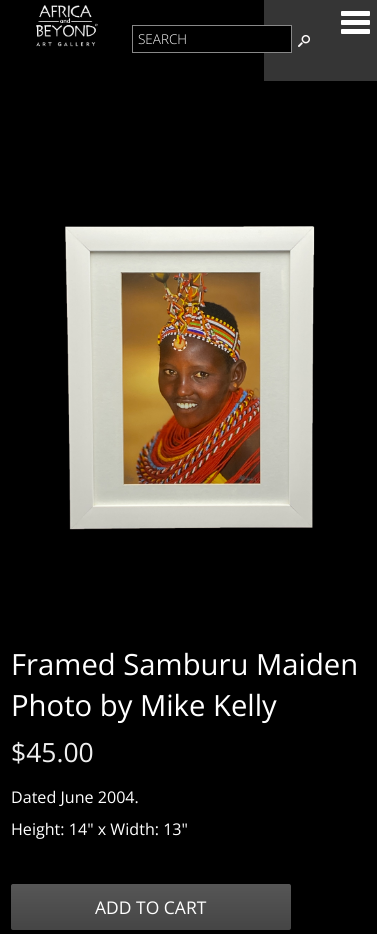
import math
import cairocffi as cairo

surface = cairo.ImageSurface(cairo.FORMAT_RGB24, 377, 934)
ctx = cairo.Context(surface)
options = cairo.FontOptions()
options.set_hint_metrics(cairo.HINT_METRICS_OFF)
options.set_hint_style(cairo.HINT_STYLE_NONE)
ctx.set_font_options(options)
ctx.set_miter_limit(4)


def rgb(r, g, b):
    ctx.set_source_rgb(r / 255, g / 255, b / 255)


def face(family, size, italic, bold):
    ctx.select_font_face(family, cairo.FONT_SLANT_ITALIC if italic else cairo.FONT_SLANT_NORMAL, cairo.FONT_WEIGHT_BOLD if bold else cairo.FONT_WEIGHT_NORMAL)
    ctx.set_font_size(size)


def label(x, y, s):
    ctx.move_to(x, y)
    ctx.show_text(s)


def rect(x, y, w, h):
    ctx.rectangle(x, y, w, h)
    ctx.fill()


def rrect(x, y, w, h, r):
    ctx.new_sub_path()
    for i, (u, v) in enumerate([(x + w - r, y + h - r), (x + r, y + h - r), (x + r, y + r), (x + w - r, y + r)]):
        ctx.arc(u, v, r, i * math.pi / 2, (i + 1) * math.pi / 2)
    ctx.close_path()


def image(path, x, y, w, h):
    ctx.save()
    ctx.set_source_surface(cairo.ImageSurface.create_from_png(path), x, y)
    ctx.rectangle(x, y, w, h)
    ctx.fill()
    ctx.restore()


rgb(0, 0, 0)
ctx.paint()
rgb(53, 53, 53)
rect(264, 0, 113, 81)
image('image0.png', 341, 11, 29, 23)
image('image1.png', 36, 5, 62, 42)
rgb(0, 0, 0)
rect(264, 26, 27, 26)
ctx.rectangle(132.5, 25.5, 159, 27)
rgb(136, 136, 136)
ctx.set_line_width(1)
ctx.stroke()
face('Open Sans Light', 13.5, 0, 0)
rgb(255, 255, 255)
label(138, 44, 'SEARCH')
image('image2.png', 298, 35, 12, 12)
image('image3.png', 65, 226, 250, 304)
face('Open Sans', 29.25, 0, 0)
label(11, 675, 'Framed Samburu Maiden')
label(11, 716, 'Photo by Mike Kelly')
face('Open Sans', 26.5, 0, 0)
rgb(238, 238, 238)
label(11, 762, '$45.00')
face('Open Sans', 16.1, 0, 0)
rgb(255, 255, 255)
label(11, 803, 'Dated June 2004.')
label(11, 835, 'Height: 14" x Width: 13"')
gradient = cairo.LinearGradient(151, 884, 151, 930)
gradient.add_color_stop_rgba(0, 0.337, 0.337, 0.337, 1)
gradient.add_color_stop_rgba(1, 0.271, 0.271, 0.271, 1)
ctx.set_source(gradient)
rrect(11, 884, 280, 46, 2)
ctx.fill()
face('Open Sans', 17.5, 0, 0)
rgb(255, 255, 255)
label(95, 914, 'ADD TO CART')
surface.write_to_png('render.png')
